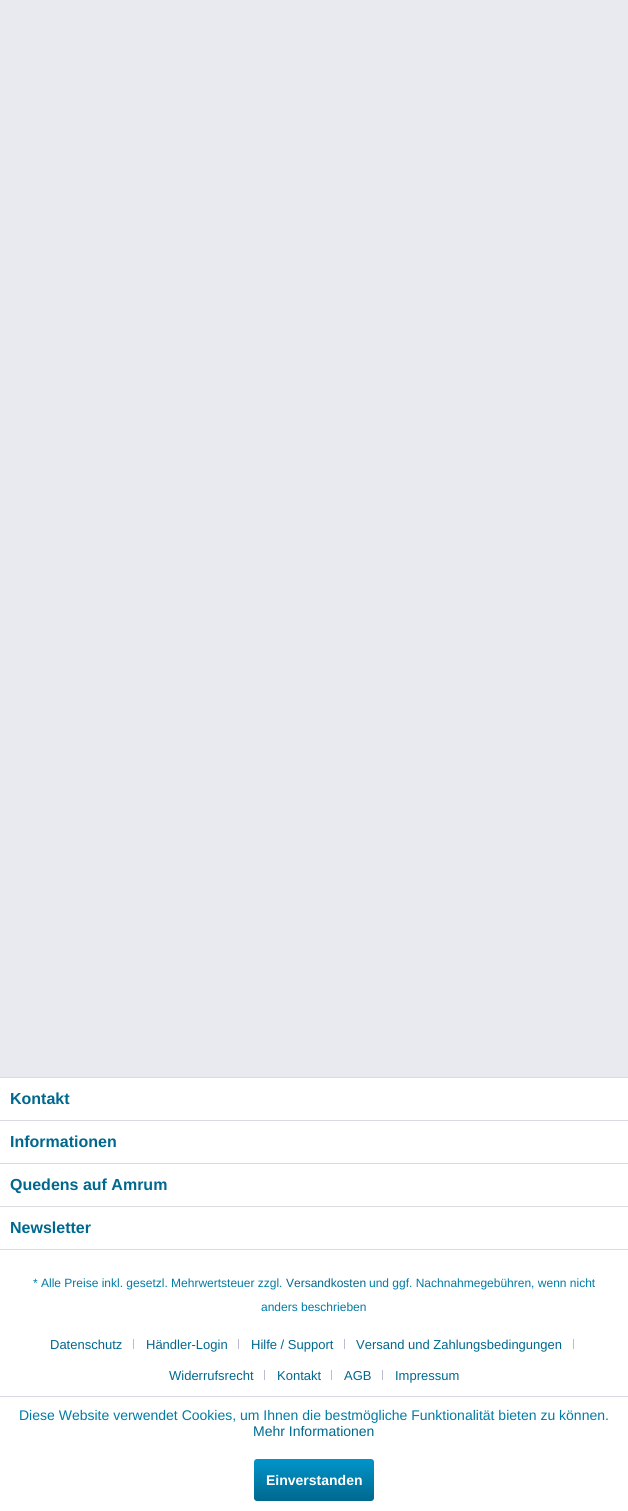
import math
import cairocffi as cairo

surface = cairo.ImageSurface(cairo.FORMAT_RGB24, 628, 1511)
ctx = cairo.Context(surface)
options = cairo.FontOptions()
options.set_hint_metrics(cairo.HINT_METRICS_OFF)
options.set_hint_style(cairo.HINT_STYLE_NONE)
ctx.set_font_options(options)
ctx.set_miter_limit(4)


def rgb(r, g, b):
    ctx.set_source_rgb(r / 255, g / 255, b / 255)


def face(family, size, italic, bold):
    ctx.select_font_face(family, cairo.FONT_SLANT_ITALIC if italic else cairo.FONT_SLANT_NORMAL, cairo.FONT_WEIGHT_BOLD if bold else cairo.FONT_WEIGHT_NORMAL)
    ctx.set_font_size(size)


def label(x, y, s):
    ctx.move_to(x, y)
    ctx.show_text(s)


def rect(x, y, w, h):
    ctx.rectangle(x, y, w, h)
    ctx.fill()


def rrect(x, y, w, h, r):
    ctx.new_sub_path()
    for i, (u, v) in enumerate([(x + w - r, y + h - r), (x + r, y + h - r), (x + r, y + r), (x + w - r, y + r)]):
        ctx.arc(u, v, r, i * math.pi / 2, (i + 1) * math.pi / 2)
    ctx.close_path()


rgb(233, 233, 240)
ctx.paint()
rgb(255, 255, 255)
rect(0, 1078, 628, 318)
rgb(218, 218, 229)
rect(0, 1077, 628, 1)
face('Liberation Sans', 16, 0, 1)
rgb(0, 104, 142)
label(10, 1104, 'Kontakt')
rgb(218, 218, 229)
rect(0, 1120, 628, 1)
rgb(0, 104, 142)
label(10, 1147, 'Informationen')
rgb(218, 218, 229)
rect(0, 1163, 628, 1)
rgb(0, 104, 142)
label(10, 1190, 'Quedens auf Amrum')
rgb(218, 218, 229)
rect(0, 1206, 628, 1)
rect(0, 1249, 628, 1)
rgb(0, 104, 142)
label(10, 1233, 'Newsletter')
face('Liberation Sans', 12, 0, 0)
rgb(0, 123, 165)
label(33, 1287, '* Alle Preise inkl. gesetzl. Mehrwertsteuer zzgl.')
rgb(0, 104, 142)
label(286, 1287, 'Versandkosten')
rgb(0, 123, 165)
label(369, 1287, 'und ggf. Nachnahmegebühren, wenn nicht')
label(261, 1311, 'anders beschrieben')
face('Liberation Sans', 13, 0, 0)
rgb(0, 104, 142)
label(50, 1349, 'Datenschutz')
rgb(188, 188, 208)
rect(133, 1339, 1, 10)
rgb(0, 104, 142)
label(146, 1349, 'Händler-Login')
rgb(188, 188, 208)
rect(238, 1339, 1, 10)
rgb(0, 104, 142)
label(251, 1349, 'Hilfe / Support')
rgb(188, 188, 208)
rect(344, 1339, 1, 10)
rgb(0, 104, 142)
label(356, 1349, 'Versand und Zahlungsbedingungen')
rgb(188, 188, 208)
rect(573, 1339, 1, 10)
rgb(0, 104, 142)
label(169, 1380, 'Widerrufsrecht')
rgb(188, 188, 208)
rect(264, 1370, 1, 10)
rgb(0, 104, 142)
label(277, 1380, 'Kontakt')
rgb(188, 188, 208)
rect(331, 1370, 1, 10)
rgb(0, 104, 142)
label(344, 1380, 'AGB')
rgb(188, 188, 208)
rect(382, 1370, 1, 10)
rgb(0, 104, 142)
label(395, 1380, 'Impressum')
rgb(255, 255, 255)
rect(0, 1397, 628, 114)
rgb(218, 218, 229)
rect(0, 1396, 628, 1)
face('Liberation Sans', 14, 0, 0)
rgb(0, 123, 165)
label(19, 1420, 'Diese Website verwendet Cookies, um Ihnen die bestmögliche Funktionalität bieten zu können.')
rgb(0, 104, 142)
label(253, 1436, 'Mehr Informationen')
gradient = cairo.LinearGradient(314, 1459, 314, 1501)
gradient.add_color_stop_rgba(0, 0, 0.584, 0.796, 1)
gradient.add_color_stop_rgba(1, 0, 0.408, 0.557, 1)
ctx.set_source(gradient)
rrect(254, 1459, 120, 42, 3)
ctx.fill()
face('Liberation Sans', 14, 0, 1)
rgb(255, 255, 255)
label(266, 1485, 'Einverstanden')
surface.write_to_png('render.png')
